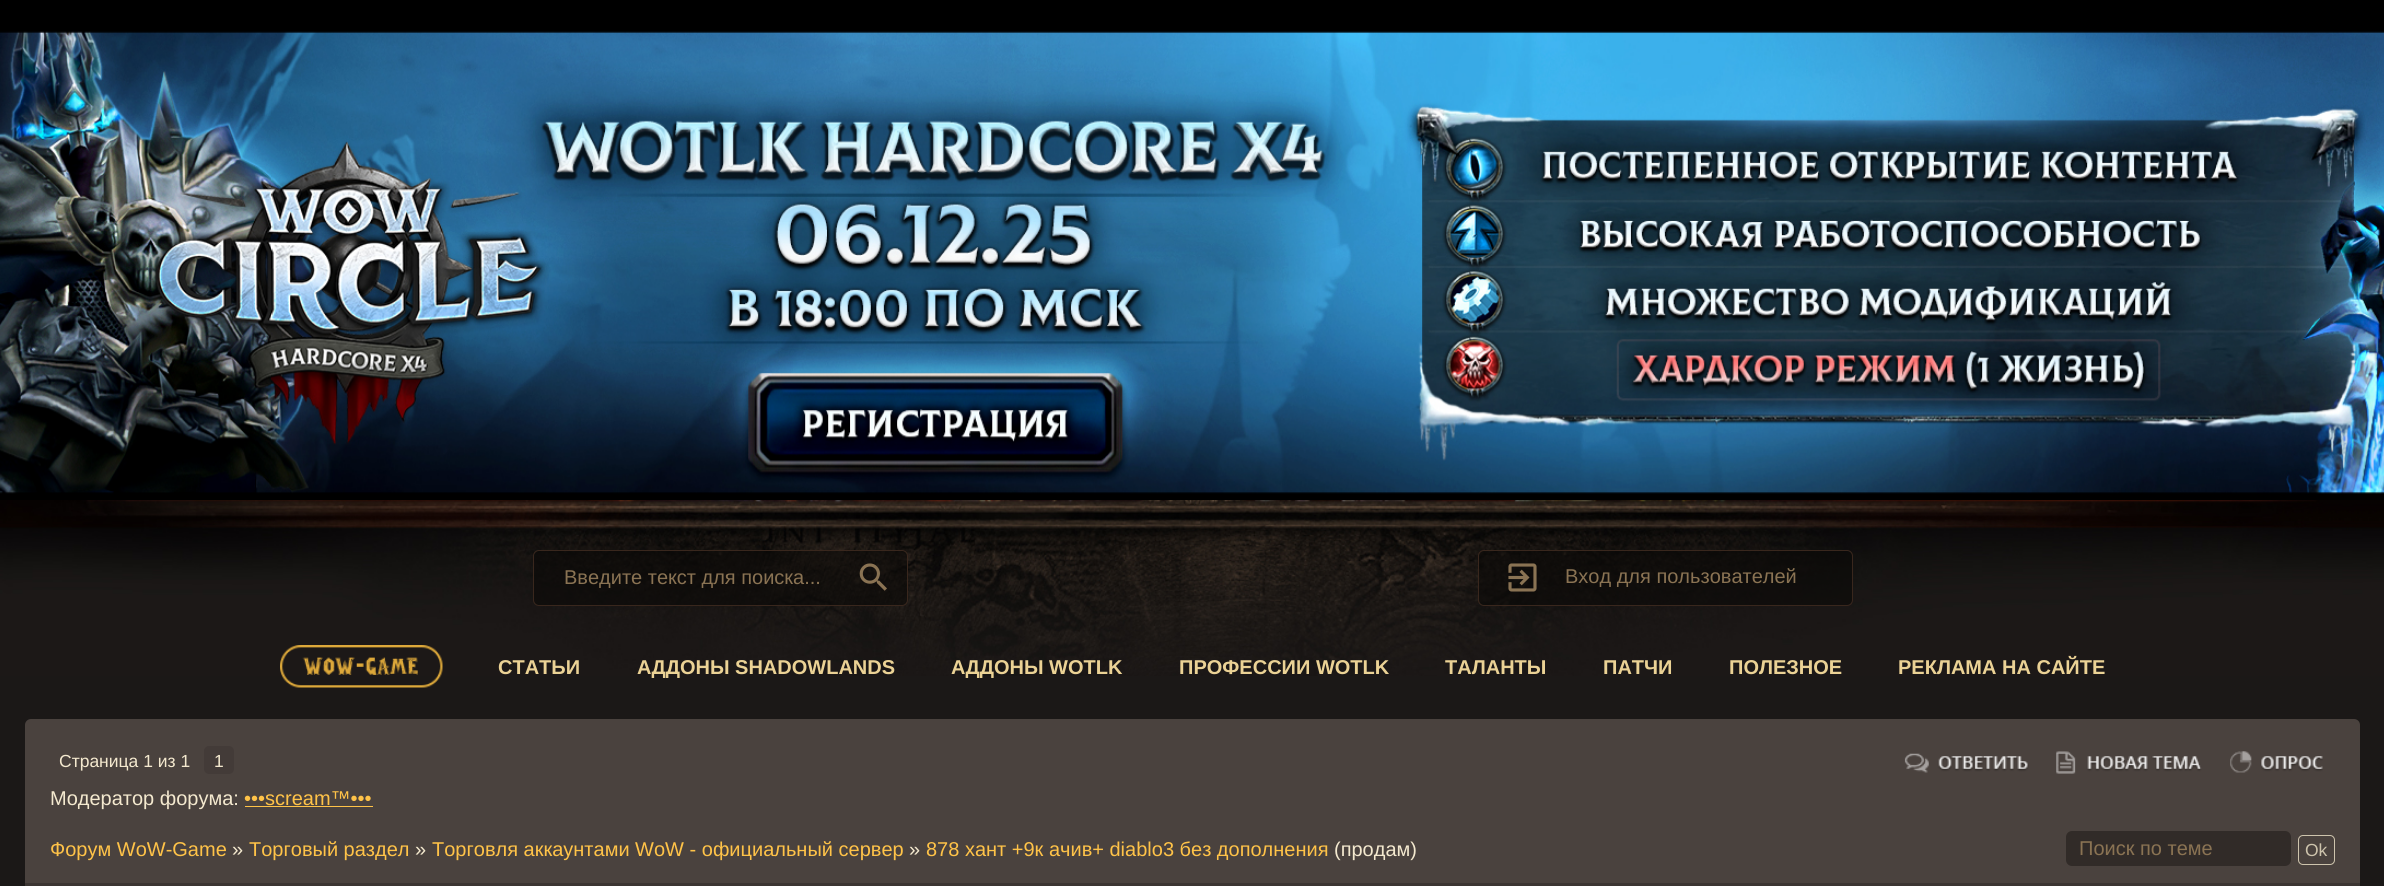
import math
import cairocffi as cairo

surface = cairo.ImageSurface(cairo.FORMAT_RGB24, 2384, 886)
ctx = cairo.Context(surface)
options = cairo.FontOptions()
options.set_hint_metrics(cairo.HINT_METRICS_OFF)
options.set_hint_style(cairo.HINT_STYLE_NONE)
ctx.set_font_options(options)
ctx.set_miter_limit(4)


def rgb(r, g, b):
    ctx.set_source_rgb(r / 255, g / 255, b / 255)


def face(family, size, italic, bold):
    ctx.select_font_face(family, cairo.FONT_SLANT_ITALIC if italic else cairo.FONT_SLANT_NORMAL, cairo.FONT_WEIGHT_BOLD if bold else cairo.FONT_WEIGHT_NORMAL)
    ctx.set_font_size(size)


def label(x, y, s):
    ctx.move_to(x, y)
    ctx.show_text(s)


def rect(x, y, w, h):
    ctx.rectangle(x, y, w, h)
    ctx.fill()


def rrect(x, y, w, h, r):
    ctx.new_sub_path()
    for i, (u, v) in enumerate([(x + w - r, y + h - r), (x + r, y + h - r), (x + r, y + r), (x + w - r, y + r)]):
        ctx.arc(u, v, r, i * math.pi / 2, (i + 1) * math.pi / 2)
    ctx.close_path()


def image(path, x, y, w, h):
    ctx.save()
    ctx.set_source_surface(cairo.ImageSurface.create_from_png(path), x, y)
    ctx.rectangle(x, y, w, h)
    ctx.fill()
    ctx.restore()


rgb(0, 0, 0)
ctx.paint()
image('image0.png', 0, 31, 2384, 463)
rgb(27, 24, 23)
rect(0, 676, 2384, 210)
image('image1.png', 0, 500, 2384, 176)
ctx.set_source_rgba(0.043, 0.035, 0.031, 0.6)
rrect(533.5, 550.5, 374, 55, 5.5)
ctx.fill_preserve()
rgb(57, 39, 29)
ctx.set_line_width(1)
ctx.stroke()
face('Liberation Sans', 20, 0, 0)
rgb(138, 115, 83)
label(564, 584, 'Введите текст для поиска...')
image('image2.png', 859, 563, 28, 28)
ctx.set_source_rgba(0.043, 0.035, 0.031, 0.6)
rrect(1478.5, 550.5, 374, 55, 5.5)
ctx.fill_preserve()
rgb(57, 39, 29)
ctx.stroke()
image('image3.png', 1508, 563, 29, 29)
rgb(138, 115, 83)
label(1565, 583, 'Вход для пользователей')
image('image4.png', 280, 645, 163, 43)
face('Liberation Sans', 20, 0, 1)
rgb(235, 210, 149)
label(498, 674, 'СТАТЬИ')
label(637, 674, 'АДДОНЫ SHADOWLANDS')
label(951, 674, 'АДДОНЫ WOTLK')
label(1179, 674, 'ПРОФЕССИИ WOTLK')
label(1445, 674, 'ТАЛАНТЫ')
label(1603, 674, 'ПАТЧИ')
label(1729, 674, 'ПОЛЕЗНОЕ')
label(1898, 674, 'РЕКЛАМА НА САЙТЕ')
rgb(74, 66, 62)
rrect(25, 719, 2335, 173, 6)
ctx.fill()
face('Liberation Sans', 17.5, 0, 0)
rgb(244, 233, 207)
label(59, 767, 'Страница 1 из 1')
rgb(67, 59, 56)
rrect(204, 746, 30, 28, 5)
ctx.fill()
rgb(244, 233, 207)
label(214, 767, '1')
image('image5.png', 1904, 753, 125, 20)
image('image6.png', 2056, 751, 146, 23)
image('image7.png', 2230, 751, 93, 22)
face('Liberation Sans', 20, 0, 0)
label(50, 805, 'Модератор форума:')
rgb(255, 195, 72)
label(244, 805, '•••scream™•••')
rect(245, 806, 128, 1)
label(50, 856, 'Форум WoW-Game')
rgb(244, 233, 207)
label(232, 856, '»')
rgb(255, 195, 72)
label(249, 856, 'Торговый раздел')
rgb(244, 233, 207)
label(415, 856, '»')
rgb(255, 195, 72)
label(432, 856, 'Торговля аккаунтами WoW - официальный сервер')
rgb(244, 233, 207)
label(909, 856, '»')
rgb(255, 195, 72)
label(926, 856, '878 хант +9к ачив+ diablo3 без дополнения')
rgb(244, 233, 207)
label(1334, 856, '(продам)')
rgb(49, 43, 40)
rrect(2066, 831, 225, 35, 6)
ctx.fill()
rgb(138, 115, 83)
label(2079, 855, 'Поиск по теме')
rrect(2298.5, 835.5, 36, 29, 4.5)
rgb(206, 196, 173)
ctx.stroke()
face('Liberation Sans', 17.5, 0, 0)
label(2305, 856, 'Ok')
rgb(59, 53, 50)
rect(25, 883, 2335, 3)
surface.write_to_png('render.png')
